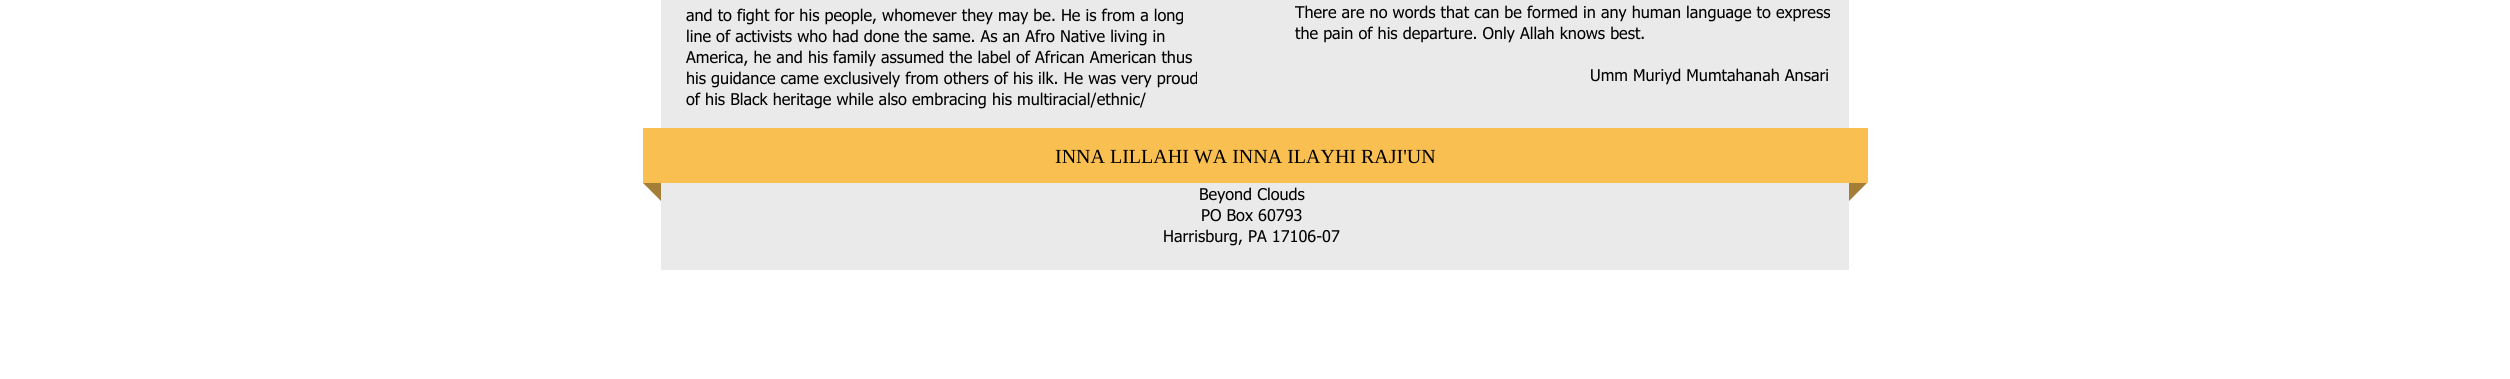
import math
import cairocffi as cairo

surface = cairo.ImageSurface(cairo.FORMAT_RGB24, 2510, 379)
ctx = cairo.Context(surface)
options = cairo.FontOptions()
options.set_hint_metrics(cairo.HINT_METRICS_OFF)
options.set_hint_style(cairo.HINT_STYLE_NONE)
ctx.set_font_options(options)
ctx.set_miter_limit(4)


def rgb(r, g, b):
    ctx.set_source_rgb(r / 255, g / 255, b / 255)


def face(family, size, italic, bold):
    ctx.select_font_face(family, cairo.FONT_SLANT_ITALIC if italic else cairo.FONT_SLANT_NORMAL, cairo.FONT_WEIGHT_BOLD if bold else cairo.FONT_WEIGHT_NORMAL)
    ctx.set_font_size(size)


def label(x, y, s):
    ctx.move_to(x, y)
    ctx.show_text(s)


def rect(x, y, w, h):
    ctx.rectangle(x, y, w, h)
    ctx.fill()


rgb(255, 255, 255)
ctx.paint()
rgb(234, 234, 234)
rect(661, 0, 1188, 270)
face('tahoma', 16.25, 0, 0)
rgb(0, 0, 0)
label(686, 21, 'and to fight for his people, whomever they may be. He is from a long')
label(686, 42, 'line of activists who had done the same. As an Afro Native living in')
label(686, 63, 'America, he and his family assumed the label of African American thus')
label(686, 84, 'his guidance came exclusively from others of his ilk. He was very proud')
label(686, 105, 'of his Black heritage while also embracing his multiracial/ethnic/')
label(1295, 18, 'There are no words that can be formed in any human language to express')
label(1295, 39, 'the pain of his departure. Only Allah knows best.')
label(1590, 81, 'Umm Muriyd Mumtahanah Ansari')
label(1199, 200, 'Beyond Clouds')
label(1201, 221, 'PO Box 60793')
label(1163, 242, 'Harrisburg, PA 17106-07')
rgb(164, 126, 54)
ctx.new_path()
ctx.move_to(642.5, 182.5)
ctx.line_to(661, 182.5)
ctx.line_to(661, 201)
ctx.close_path()
ctx.fill()
ctx.new_path()
ctx.move_to(1849, 182.5)
ctx.line_to(1867.5, 182.5)
ctx.line_to(1849, 201)
ctx.close_path()
ctx.fill()
rgb(249, 191, 81)
rect(643, 128, 1225, 55)
face('Liberation Serif', 20, 0, 0)
rgb(0, 0, 0)
label(1055, 163, 'INNA LILLAHI WA INNA ILAYHI RAJI\'UN')
surface.write_to_png('render.png')
